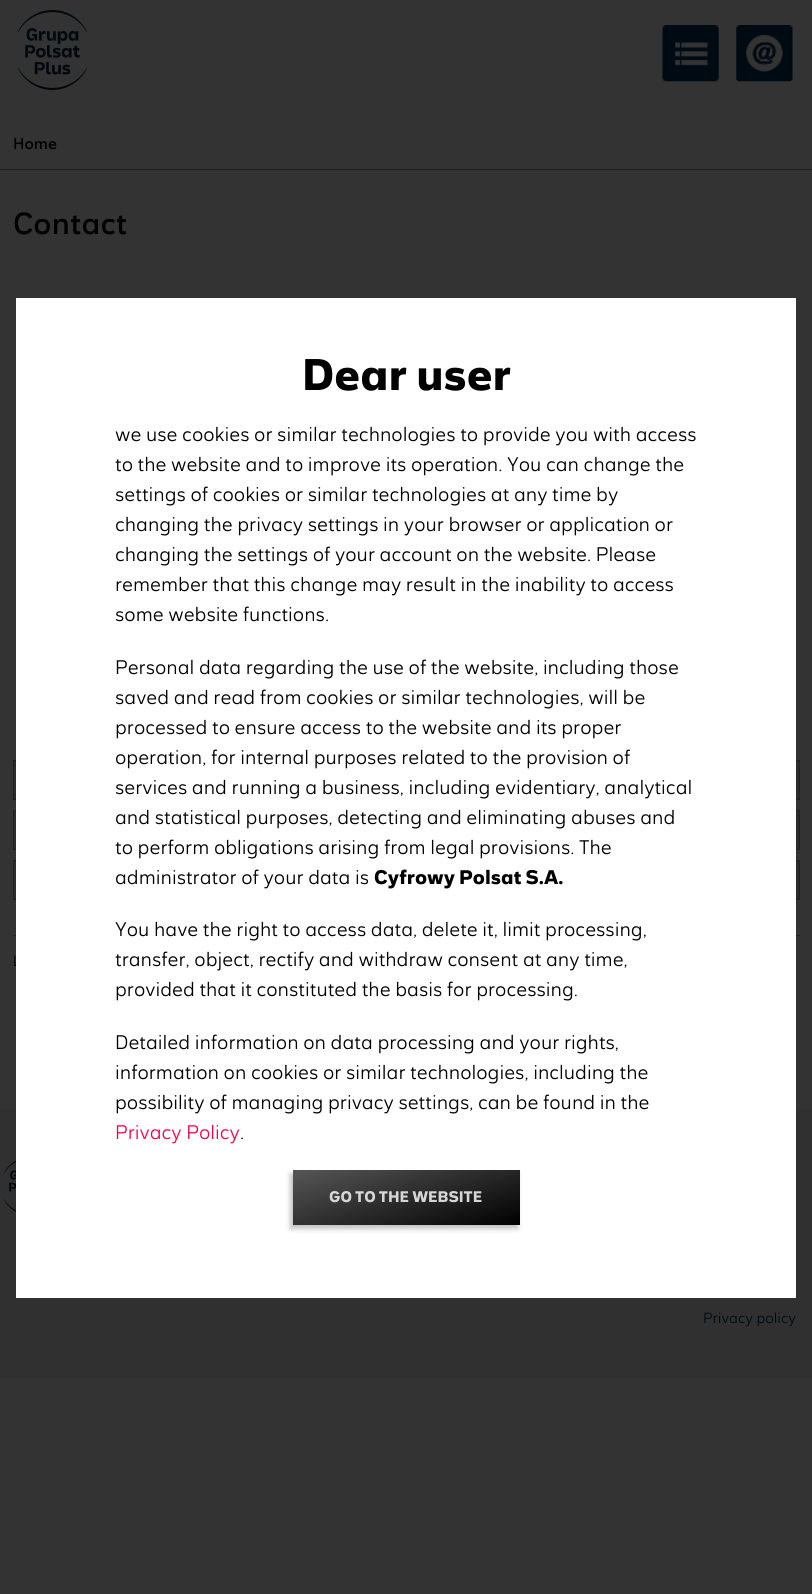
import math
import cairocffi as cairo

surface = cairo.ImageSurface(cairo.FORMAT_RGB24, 812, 1594)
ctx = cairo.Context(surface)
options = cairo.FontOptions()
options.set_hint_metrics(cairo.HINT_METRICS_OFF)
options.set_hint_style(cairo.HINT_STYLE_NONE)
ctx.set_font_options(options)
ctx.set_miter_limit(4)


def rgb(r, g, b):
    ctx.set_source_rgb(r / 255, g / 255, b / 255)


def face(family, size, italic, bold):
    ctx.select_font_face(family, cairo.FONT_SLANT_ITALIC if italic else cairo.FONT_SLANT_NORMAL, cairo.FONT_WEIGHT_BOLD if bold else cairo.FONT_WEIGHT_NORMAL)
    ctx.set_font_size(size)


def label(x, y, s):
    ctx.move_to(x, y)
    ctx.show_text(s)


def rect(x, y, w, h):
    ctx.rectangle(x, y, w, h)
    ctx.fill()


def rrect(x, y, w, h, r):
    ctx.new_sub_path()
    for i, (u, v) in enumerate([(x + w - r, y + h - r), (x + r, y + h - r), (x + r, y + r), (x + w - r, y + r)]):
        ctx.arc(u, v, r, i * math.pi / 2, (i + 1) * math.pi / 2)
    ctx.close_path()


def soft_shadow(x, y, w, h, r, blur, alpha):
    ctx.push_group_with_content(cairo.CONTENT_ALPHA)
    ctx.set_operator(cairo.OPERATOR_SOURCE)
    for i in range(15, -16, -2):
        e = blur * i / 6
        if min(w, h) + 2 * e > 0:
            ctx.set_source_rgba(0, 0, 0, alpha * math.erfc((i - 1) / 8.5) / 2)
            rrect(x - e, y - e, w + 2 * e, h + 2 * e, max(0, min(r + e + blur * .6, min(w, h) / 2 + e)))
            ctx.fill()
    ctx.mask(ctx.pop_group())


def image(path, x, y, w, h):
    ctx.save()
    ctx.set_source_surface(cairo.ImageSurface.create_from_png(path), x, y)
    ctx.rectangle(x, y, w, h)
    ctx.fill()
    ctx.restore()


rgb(51, 51, 51)
ctx.paint()
image('image0.png', 18, 10, 69, 80)
image('image1.png', 662, 25, 57, 57)
image('image2.png', 736, 25, 57, 57)
rgb(31, 31, 31)
rect(0, 169, 812, 1)
face('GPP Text', 16, 0, 0)
rgb(0, 0, 0)
label(13, 149, 'Home')
face('GPP Text', 31, 0, 0)
label(13, 234, 'Contact')
rgb(43, 43, 43)
ctx.rectangle(13.5, 760.5, 786, 39)
ctx.fill_preserve()
rgb(33, 33, 33)
ctx.set_line_width(1)
ctx.stroke()
rgb(43, 43, 43)
ctx.rectangle(13.5, 810.5, 786, 39)
ctx.fill_preserve()
rgb(33, 33, 33)
ctx.stroke()
rgb(43, 43, 43)
ctx.rectangle(13.5, 860.5, 786, 39)
ctx.fill_preserve()
rgb(33, 33, 33)
ctx.stroke()
rgb(37, 37, 37)
rect(13, 935, 787, 1)
face('GPP Text Light', 15, 0, 0)
rgb(0, 0, 0)
label(13, 966, 'L')
rgb(48, 48, 48)
rect(0, 1109, 812, 269)
image('image3.png', 4, 1160, 12, 52)
rgb(0, 10, 19)
label(703, 1323, 'Privacy policy')
rgb(255, 255, 255)
rect(16, 298, 780, 1000)
face('GPP Text', 45, 0, 1)
rgb(0, 0, 0)
label(302, 390, 'Dear user')
face('GPP Text Light', 20, 0, 0)
label(115, 441, 'we use cookies or similar technologies to provide you with access')
label(115, 471, 'to the website and to improve its operation. You can change the')
label(115, 501, 'settings of cookies or similar technologies at any time by')
label(115, 531, 'changing the privacy settings in your browser or application or')
label(115, 561, 'changing the settings of your account on the website. Please')
label(115, 591, 'remember that this change may result in the inability to access')
label(115, 621, 'some website functions.')
label(115, 674, 'Personal data regarding the use of the website, including those')
label(115, 704, 'saved and read from cookies or similar technologies, will be')
label(115, 734, 'processed to ensure access to the website and its proper')
label(115, 764, 'operation, for internal purposes related to the provision of')
label(115, 794, 'services and running a business, including evidentiary, analytical')
label(115, 824, 'and statistical purposes, detecting and eliminating abuses and')
label(115, 854, 'to perform obligations arising from legal provisions. The')
label(115, 884, 'administrator of your data is')
face('GPP Text', 20, 0, 1)
label(374, 884, 'Cyfrowy Polsat S.A.')
face('GPP Text Light', 20, 0, 0)
label(115, 936, 'You have the right to access data, delete it, limit processing,')
label(115, 966, 'transfer, object, rectify and withdraw consent at any time,')
label(115, 996, 'provided that it constituted the basis for processing.')
label(115, 1049, 'Detailed information on data processing and your rights,')
label(115, 1079, 'information on cookies or similar technologies, including the')
label(115, 1109, 'possibility of managing privacy settings, can be found in the')
rgb(250, 1, 77)
label(115, 1139, 'Privacy Policy')
rgb(0, 0, 0)
label(240, 1139, '.')
rgb(0, 0, 0)
soft_shadow(290, 1174, 228, 55, 0, 2.5, 0.24)
gradient = cairo.LinearGradient(425, 1256, 387, 1139)
gradient.add_color_stop_rgba(0, 0, 0, 0, 1)
gradient.add_color_stop_rgba(1, 0.341, 0.341, 0.341, 1)
ctx.set_source(gradient)
rect(293, 1170, 227, 55)
face('GPP Text', 15.6, 0, 1)
rgb(213, 213, 213)
label(329, 1202, 'GO TO THE WEBSITE')
surface.write_to_png('render.png')
